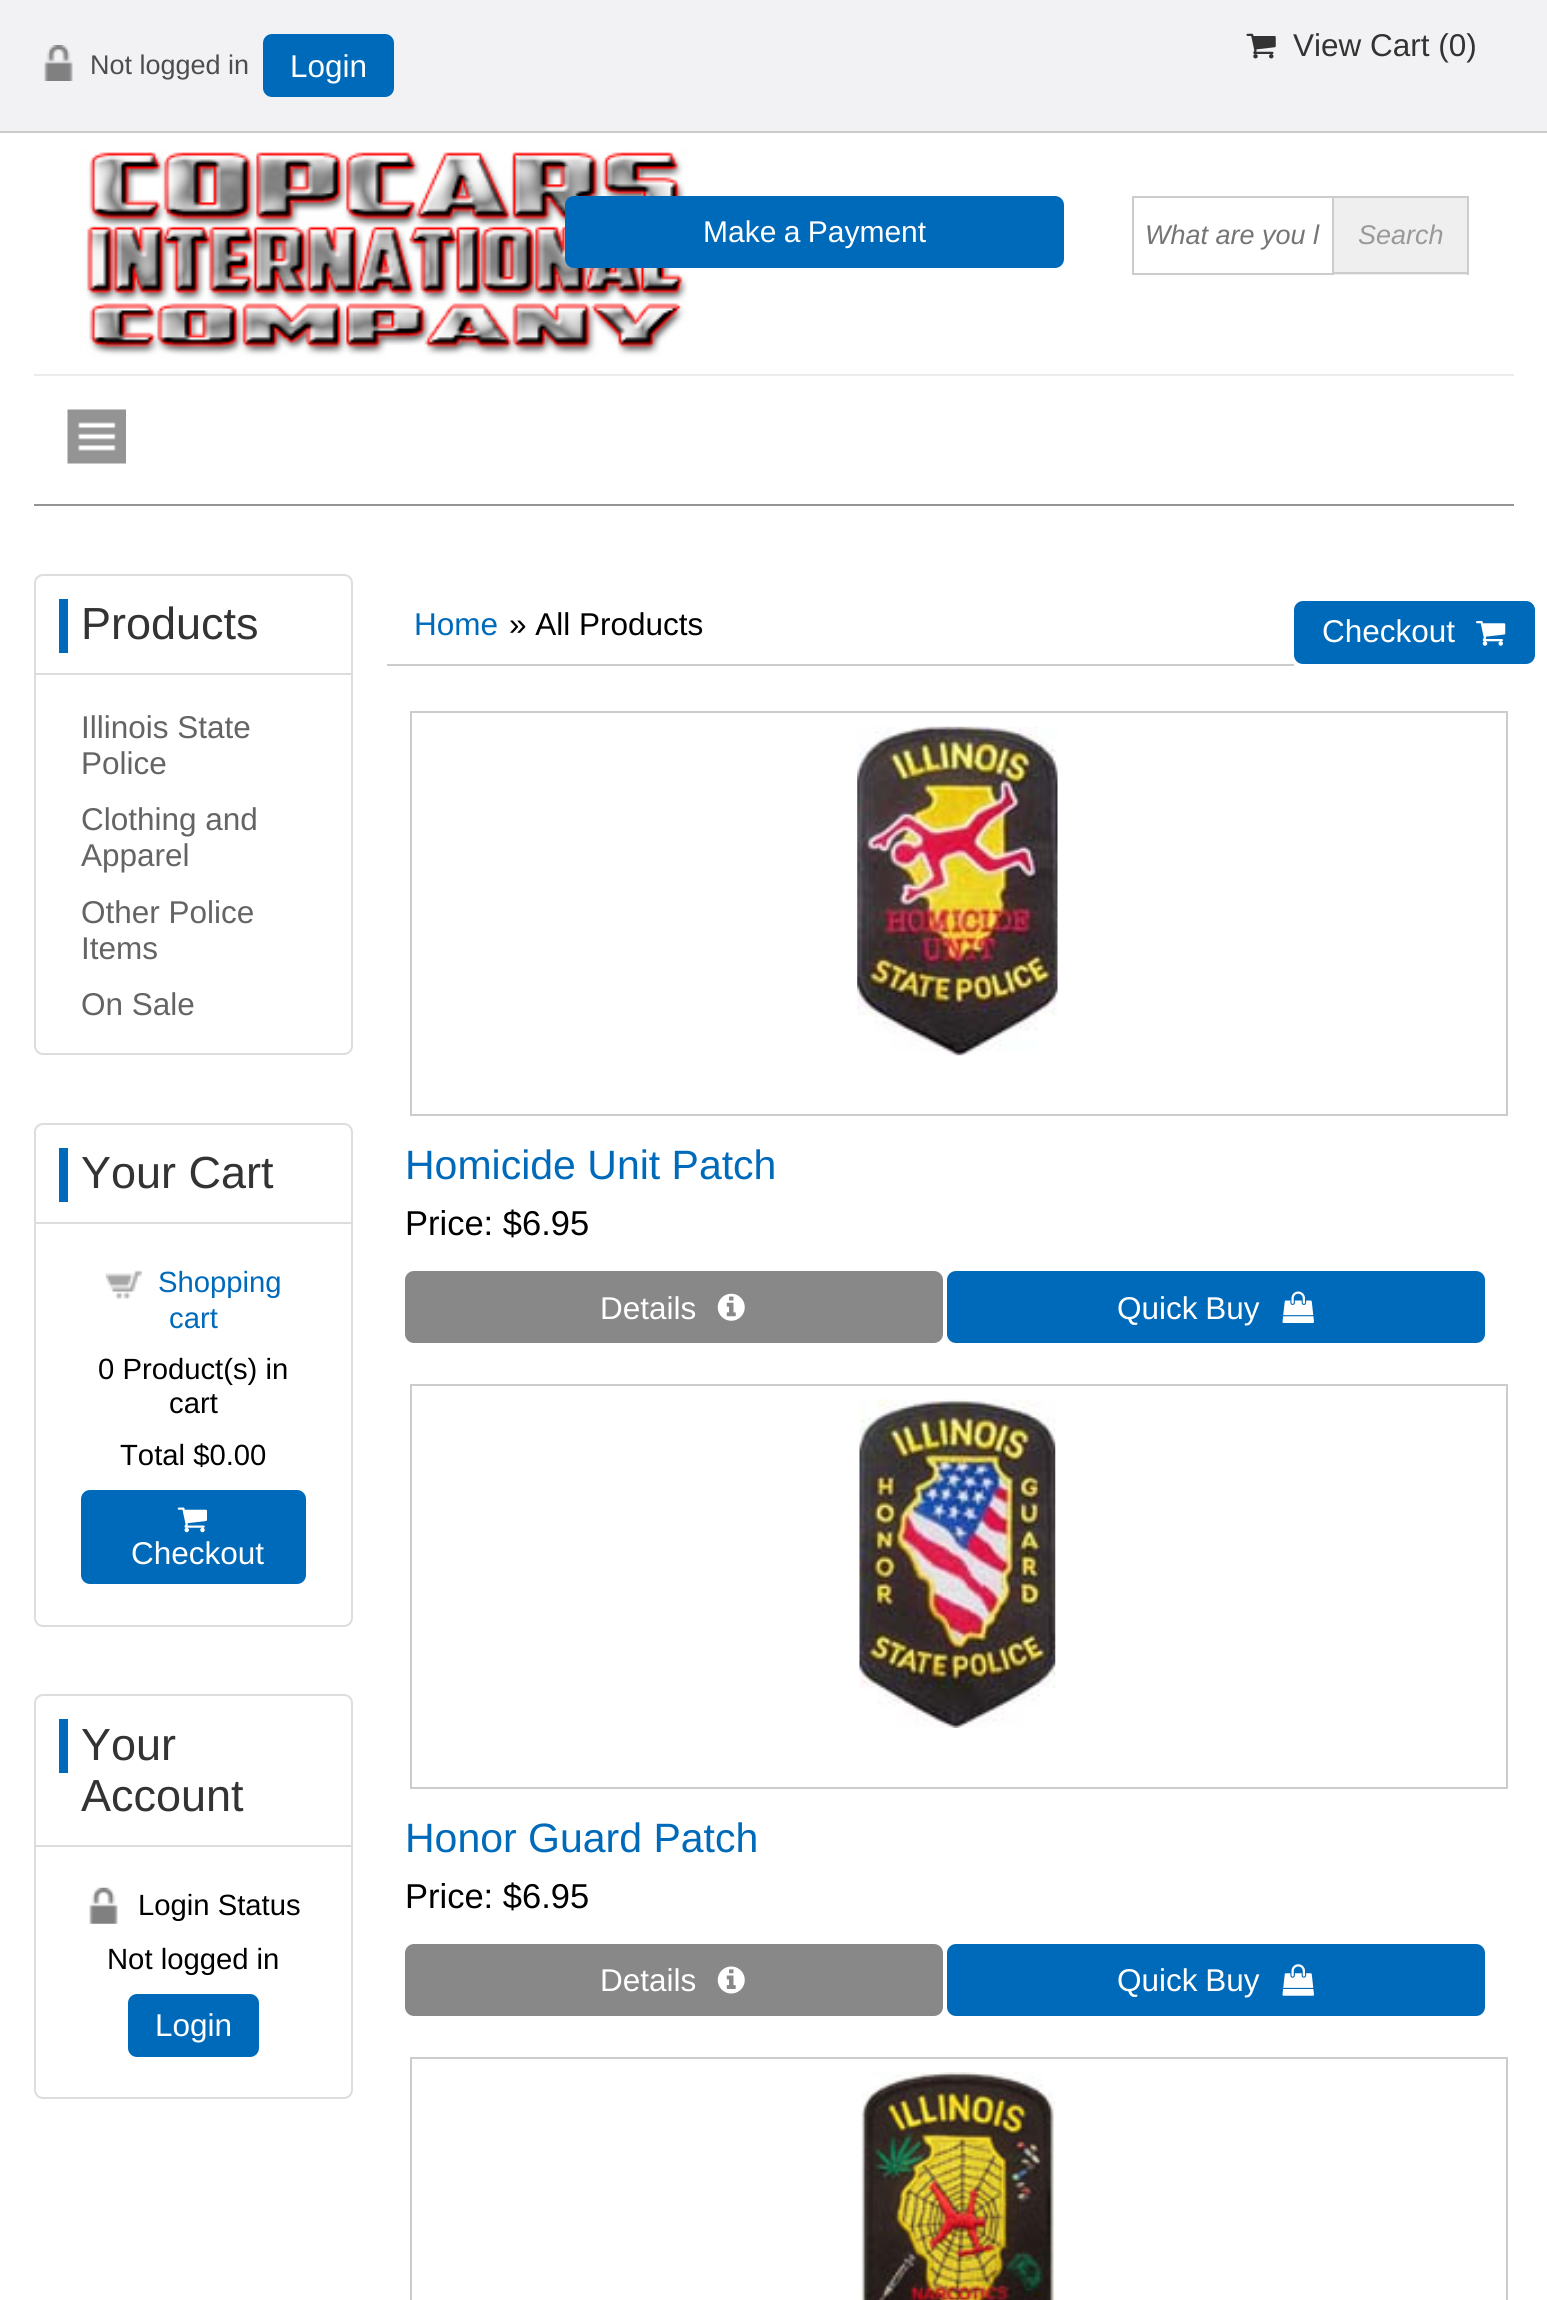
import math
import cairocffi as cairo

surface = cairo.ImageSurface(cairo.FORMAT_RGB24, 1547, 2300)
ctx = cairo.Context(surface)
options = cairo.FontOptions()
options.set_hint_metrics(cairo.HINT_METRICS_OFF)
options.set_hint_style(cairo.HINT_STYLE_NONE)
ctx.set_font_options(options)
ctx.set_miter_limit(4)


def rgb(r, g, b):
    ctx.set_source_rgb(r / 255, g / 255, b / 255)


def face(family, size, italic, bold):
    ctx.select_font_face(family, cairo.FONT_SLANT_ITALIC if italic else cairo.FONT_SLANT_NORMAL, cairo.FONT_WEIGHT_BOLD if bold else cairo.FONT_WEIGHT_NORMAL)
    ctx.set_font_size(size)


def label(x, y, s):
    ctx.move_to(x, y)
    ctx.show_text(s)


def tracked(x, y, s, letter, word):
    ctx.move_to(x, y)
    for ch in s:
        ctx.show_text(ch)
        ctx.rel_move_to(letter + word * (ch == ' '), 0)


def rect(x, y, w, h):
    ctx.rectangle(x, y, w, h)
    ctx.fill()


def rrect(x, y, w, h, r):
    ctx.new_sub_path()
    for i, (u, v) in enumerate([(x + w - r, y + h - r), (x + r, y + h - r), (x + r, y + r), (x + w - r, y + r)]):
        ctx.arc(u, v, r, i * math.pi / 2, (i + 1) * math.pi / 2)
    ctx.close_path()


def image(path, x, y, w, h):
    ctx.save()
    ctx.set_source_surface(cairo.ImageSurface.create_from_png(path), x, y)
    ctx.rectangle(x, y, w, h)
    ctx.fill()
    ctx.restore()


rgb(255, 255, 255)
ctx.paint()
rgb(242, 242, 244)
rect(0, 0, 1547, 131)
rgb(204, 204, 204)
rect(0, 131, 1547, 2)
image('image0.png', 1246, 33, 30, 26)
face('Liberation Sans', 31.5, 0, 0)
rgb(51, 51, 51)
label(1293, 56, 'View Cart (0)')
image('image1.png', 44, 45, 29, 36)
face('Liberation Sans', 27, 0, 0)
rgb(77, 77, 79)
label(90, 74, 'Not logged in')
rgb(0, 106, 186)
rrect(263, 34, 131, 63, 9)
ctx.fill()
face('Liberation Sans', 31.5, 0, 0)
rgb(255, 255, 255)
label(290, 77, 'Login')
image('image2.png', 79, 149, 609, 208)
rgb(0, 106, 186)
rrect(565, 196, 499, 72, 9)
ctx.fill()
face('Liberation Sans', 30, 0, 0)
rgb(255, 255, 255)
tracked(703, 242, 'Make a Payment', 0, -1)
ctx.rectangle(1133, 197, 200, 77)
rgb(204, 204, 204)
ctx.stroke()
face('Liberation Sans', 27, 1, 0)
rgb(117, 117, 117)
label(1145, 244, 'What are you l')
rgb(239, 239, 239)
rect(1334, 198, 133, 77)
rgb(204, 204, 204)
rect(1334, 196, 135, 2)
rect(1467, 196, 2, 79)
rect(1334, 272, 135, 2)
rgb(153, 153, 153)
label(1358, 244, 'Search')
rgb(236, 236, 236)
rect(34, 374, 1480, 2)
rgb(148, 148, 148)
rect(34, 504, 1480, 2)
image('image3.png', 67, 409, 59, 55)
rrect(35, 575, 317, 479, 8)
rgb(221, 221, 221)
ctx.stroke()
rect(36, 673, 315, 2)
rgb(0, 106, 186)
rect(59, 599, 9, 54)
face('Liberation Sans', 45, 0, 0)
rgb(51, 51, 51)
label(81, 639, 'Products')
face('Liberation Sans', 31.5, 0, 0)
rgb(100, 100, 100)
label(81, 738, 'Illinois State')
label(81, 774, 'Police')
label(81, 830, 'Clothing and')
label(81, 866, 'Apparel')
label(81, 923, 'Other Police')
label(81, 959, 'Items')
label(81, 1015, 'On Sale')
rgb(204, 204, 204)
rect(387, 664, 907, 2)
rgb(0, 106, 186)
label(414, 635, 'Home')
rgb(0, 0, 0)
label(509, 635, '» All Products')
rgb(0, 106, 186)
rrect(1294, 601, 241, 63, 9)
ctx.fill()
rgb(255, 255, 255)
label(1322, 642, 'Checkout')
image('image4.png', 1476, 621, 30, 25)
ctx.rectangle(411, 712, 1096, 403)
rgb(204, 204, 204)
ctx.stroke()
image('image5.png', 857, 726, 201, 330)
face('Liberation Sans', 41, 0, 0)
rgb(0, 106, 186)
label(405, 1179, 'Homicide Unit Patch')
face('Liberation Sans', 34.5, 0, 0)
rgb(0, 0, 0)
label(405, 1235, 'Price: $6.95')
rgb(136, 136, 136)
rrect(405, 1271, 538, 72, 9)
ctx.fill()
face('Liberation Sans', 31.5, 0, 0)
rgb(255, 255, 255)
label(600, 1319, 'Details')
image('image6.png', 717, 1293, 28, 28)
rgb(0, 106, 186)
rrect(947, 1271, 538, 72, 9)
ctx.fill()
rgb(255, 255, 255)
tracked(1117, 1319, 'Quick Buy', 0, -1)
image('image7.png', 1282, 1291, 32, 32)
ctx.rectangle(411, 1385, 1096, 403)
rgb(204, 204, 204)
ctx.stroke()
image('image8.png', 859, 1399, 197, 329)
face('Liberation Sans', 41, 0, 0)
rgb(0, 106, 186)
label(405, 1852, 'Honor Guard Patch')
face('Liberation Sans', 34.5, 0, 0)
rgb(0, 0, 0)
label(405, 1908, 'Price: $6.95')
rgb(136, 136, 136)
rrect(405, 1944, 538, 72, 9)
ctx.fill()
face('Liberation Sans', 31.5, 0, 0)
rgb(255, 255, 255)
label(600, 1991, 'Details')
image('image9.png', 717, 1966, 28, 28)
rgb(0, 106, 186)
rrect(947, 1944, 538, 72, 9)
ctx.fill()
rgb(255, 255, 255)
tracked(1117, 1991, 'Quick Buy', 0, -1)
image('image10.png', 1282, 1964, 32, 32)
ctx.rectangle(411, 2058, 1096, 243)
rgb(204, 204, 204)
ctx.stroke()
image('image11.png', 861, 2072, 195, 228)
rrect(35, 1124, 317, 502, 8)
rgb(221, 221, 221)
ctx.stroke()
rect(36, 1222, 315, 2)
rgb(0, 106, 186)
rect(59, 1148, 9, 54)
face('Liberation Sans', 45, 0, 0)
rgb(51, 51, 51)
label(81, 1188, 'Your Cart')
image('image12.png', 105, 1270, 37, 29)
face('Liberation Sans', 29.25, 0, 0)
rgb(0, 106, 186)
label(158, 1292, 'Shopping')
label(169, 1328, 'cart')
rgb(0, 0, 0)
label(98, 1379, '0 Product(s) in')
label(169, 1413, 'cart')
label(120, 1465, 'Total $0.00')
rgb(0, 106, 186)
rrect(81, 1490, 225, 94, 9)
ctx.fill()
image('image13.png', 177, 1507, 30, 26)
face('Liberation Sans', 31.5, 0, 0)
rgb(255, 255, 255)
label(131, 1564, 'Checkout')
rrect(35, 1695, 317, 403, 8)
rgb(221, 221, 221)
ctx.stroke()
rect(36, 1845, 315, 2)
rgb(0, 106, 186)
rect(59, 1719, 9, 54)
face('Liberation Sans', 45, 0, 0)
rgb(51, 51, 51)
label(81, 1760, 'Your')
label(81, 1811, 'Account')
image('image14.png', 89, 1887, 29, 37)
face('Liberation Sans', 29.25, 0, 0)
rgb(0, 0, 0)
label(138, 1915, 'Login Status')
label(107, 1969, 'Not logged in')
rgb(0, 106, 186)
rrect(128, 1994, 131, 63, 9)
ctx.fill()
face('Liberation Sans', 31.5, 0, 0)
rgb(255, 255, 255)
label(155, 2036, 'Login')
surface.write_to_png('render.png')
